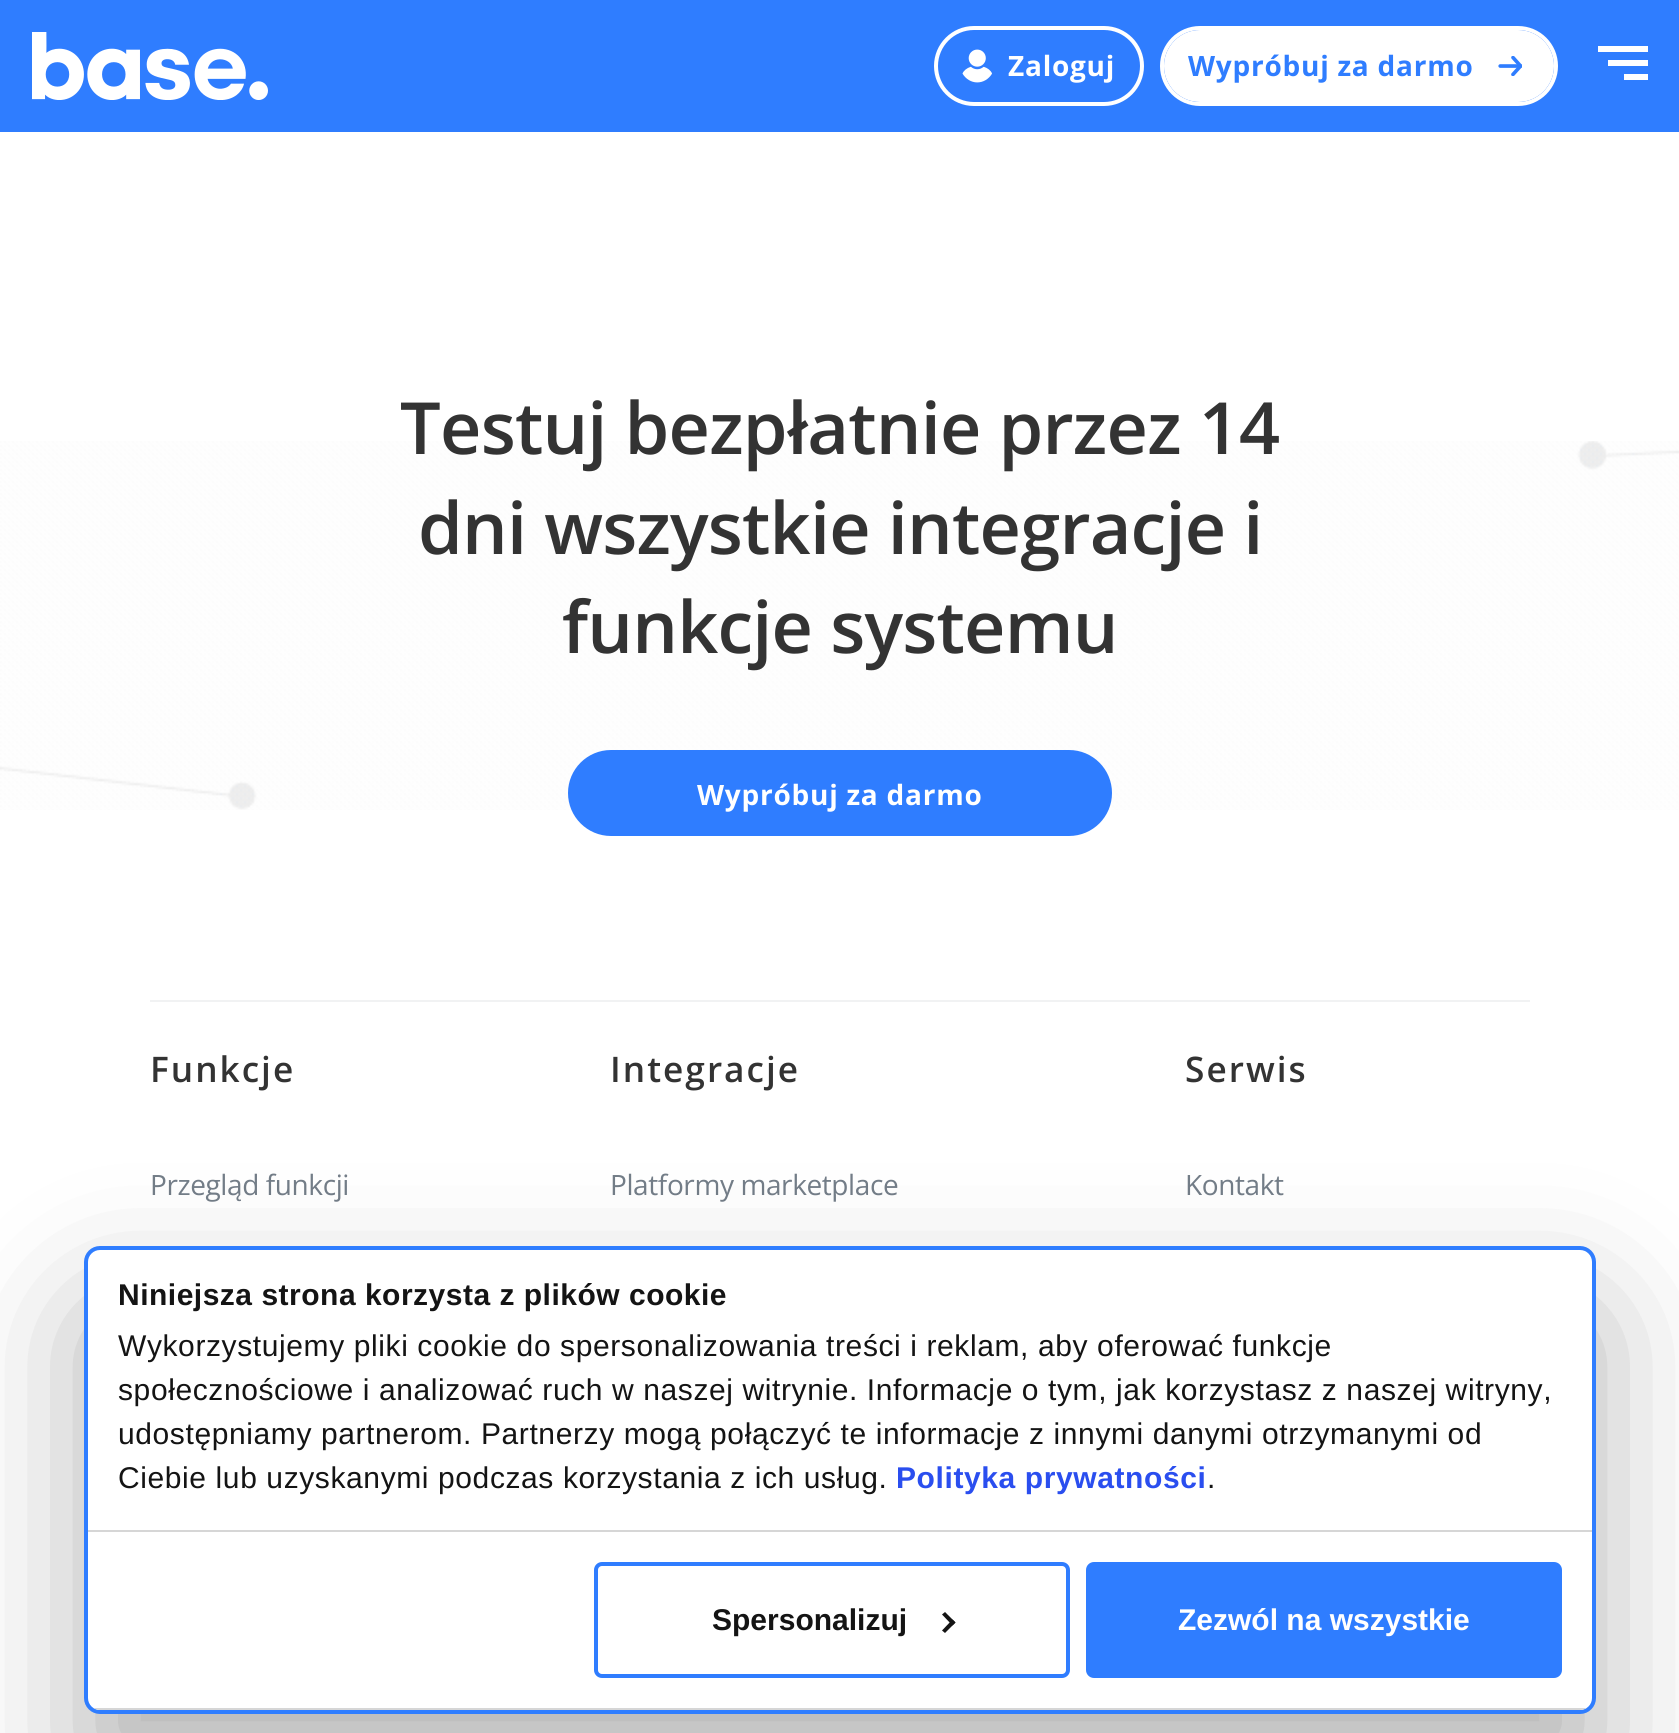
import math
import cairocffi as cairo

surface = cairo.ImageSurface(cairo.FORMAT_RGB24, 1679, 1733)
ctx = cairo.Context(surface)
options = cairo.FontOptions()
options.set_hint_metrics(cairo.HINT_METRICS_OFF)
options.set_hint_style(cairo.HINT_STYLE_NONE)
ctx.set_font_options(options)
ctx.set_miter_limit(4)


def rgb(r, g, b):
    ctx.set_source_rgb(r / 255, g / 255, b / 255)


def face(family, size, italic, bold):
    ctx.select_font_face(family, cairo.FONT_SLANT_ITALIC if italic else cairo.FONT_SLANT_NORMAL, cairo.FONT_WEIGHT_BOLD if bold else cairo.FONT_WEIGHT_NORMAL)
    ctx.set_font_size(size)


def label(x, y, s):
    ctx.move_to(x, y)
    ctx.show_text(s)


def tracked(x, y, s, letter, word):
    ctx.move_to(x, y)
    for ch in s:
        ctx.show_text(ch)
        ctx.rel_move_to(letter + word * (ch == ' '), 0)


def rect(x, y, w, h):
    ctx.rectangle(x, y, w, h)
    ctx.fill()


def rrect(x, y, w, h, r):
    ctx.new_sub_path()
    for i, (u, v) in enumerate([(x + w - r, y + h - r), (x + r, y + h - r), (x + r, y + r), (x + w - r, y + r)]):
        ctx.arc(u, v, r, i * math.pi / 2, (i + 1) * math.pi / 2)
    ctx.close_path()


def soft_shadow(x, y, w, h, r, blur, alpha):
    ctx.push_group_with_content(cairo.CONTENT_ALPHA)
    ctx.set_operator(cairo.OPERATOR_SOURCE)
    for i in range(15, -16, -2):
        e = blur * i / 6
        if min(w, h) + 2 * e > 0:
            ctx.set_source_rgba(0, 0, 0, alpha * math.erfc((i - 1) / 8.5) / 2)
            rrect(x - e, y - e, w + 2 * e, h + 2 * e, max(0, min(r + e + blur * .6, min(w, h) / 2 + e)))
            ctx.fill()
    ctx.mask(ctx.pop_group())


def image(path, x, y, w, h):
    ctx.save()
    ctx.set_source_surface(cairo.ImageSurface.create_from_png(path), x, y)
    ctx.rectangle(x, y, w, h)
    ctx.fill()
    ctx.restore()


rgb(255, 255, 255)
ctx.paint()
rgb(47, 125, 255)
rect(0, 0, 1679, 132)
image('image0.png', 32, 32, 236, 68)
rrect(936, 28, 206, 76, 38)
rgb(255, 255, 255)
ctx.set_line_width(4)
ctx.stroke()
image('image1.png', 962, 49, 30, 34)
face('Open Sans', 28, 0, 1)
tracked(1008, 76, 'Zaloguj', 0.75, 0)
rrect(1162, 28, 394, 76, 38)
ctx.stroke()
rrect(1164, 30, 390, 72, 36)
ctx.fill()
rgb(47, 125, 255)
tracked(1188, 76, 'Wypróbuj za darmo', 0.75, 0)
image('image2.png', 1498, 56, 24, 20)
rgb(255, 255, 255)
rect(1598, 46, 50, 6)
rect(1608, 60, 40, 6)
rect(1624, 74, 24, 6)
image('image3.png', 0, 441, 1679, 369)
face('Open Sans SemiBold', 72, 0, 0)
rgb(51, 51, 51)
tracked(400, 454, 'Testuj bezpłatnie przez 14', -0.8, 0)
tracked(418, 554, 'dni wszystkie integracje i', -0.8, 0)
tracked(562, 653, 'funkcje systemu', -0.8, 0)
rgb(47, 125, 255)
rrect(569, 751, 542, 84, 42)
ctx.fill_preserve()
ctx.set_line_width(2)
ctx.stroke()
face('Open Sans', 28, 0, 1)
rgb(255, 255, 255)
tracked(697, 805, 'Wypróbuj za darmo', 0.75, 0)
rgb(241, 242, 243)
rect(150, 1000, 1380, 2)
face('Open Sans SemiBold', 35.25, 0, 0)
rgb(51, 51, 51)
tracked(150, 1082, 'Funkcje', 2, 0)
face('Open Sans', 28, 0, 0)
rgb(115, 125, 136)
tracked(150, 1195, 'Przegląd funkcji', -0.4, 0)
face('Open Sans SemiBold', 35.25, 0, 0)
rgb(51, 51, 51)
tracked(610, 1082, 'Integracje', 2, 0)
face('Open Sans', 28, 0, 0)
rgb(115, 125, 136)
tracked(610, 1195, 'Platformy marketplace', -0.4, 0)
face('Open Sans SemiBold', 35.25, 0, 0)
rgb(51, 51, 51)
tracked(1185, 1082, 'Serwis', 2, 0)
face('Open Sans', 28, 0, 0)
rgb(115, 125, 136)
tracked(1185, 1195, 'Kontakt', -0.4, 0)
rgb(0, 0, 0)
soft_shadow(84, 1310, 1512, 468, 16, 68, 0.3)
rgb(255, 255, 255)
rrect(86, 1248, 1508, 464, 14)
ctx.fill_preserve()
rgb(47, 125, 255)
ctx.set_line_width(4)
ctx.stroke()
rgb(214, 214, 214)
rect(88, 1530, 1504, 2)
face('Liberation Sans', 30, 0, 1)
rgb(20, 20, 20)
tracked(118, 1305, 'Niniejsza strona korzysta z plików cookie', 0.5, 0)
face('Liberation Sans', 30, 0, 0)
tracked(118, 1356, 'Wykorzystujemy pliki cookie do spersonalizowania treści i reklam, aby oferować funkcje', 0.6, 0)
tracked(118, 1400, 'społecznościowe i analizować ruch w naszej witrynie. Informacje o tym, jak korzystasz z naszej witryny,', 0.6, 0)
tracked(118, 1444, 'udostępniamy partnerom. Partnerzy mogą połączyć te informacje z innymi danymi otrzymanymi od', 0.6, 0)
tracked(118, 1488, 'Ciebie lub uzyskanymi podczas korzystania z ich usług.', 0.6, 0)
face('Liberation Sans', 30, 0, 1)
rgb(42, 78, 239)
tracked(896, 1488, 'Polityka prywatności', 0.6, 0)
face('Liberation Sans', 30, 0, 0)
rgb(20, 20, 20)
tracked(1207, 1488, '.', 0.6, 0)
ctx.save()
rrect(88, 1250, 1504, 460, 12)
ctx.clip()
rgb(214, 214, 214)
rect(88, 1708, 1504, 2)
ctx.restore()
rrect(596, 1564, 472, 112, 6)
rgb(47, 125, 255)
ctx.stroke()
face('Liberation Sans', 30, 0, 1)
rgb(20, 20, 20)
label(712, 1630, 'Spersonalizuj')
ctx.new_path()
ctx.move_to(945, 1612)
ctx.line_to(955.5, 1622.5)
ctx.line_to(952.5, 1625.5)
ctx.line_to(942, 1614.5)
ctx.close_path()
ctx.fill()
ctx.new_path()
ctx.move_to(952.5, 1619.5)
ctx.line_to(955.5, 1622.5)
ctx.line_to(945, 1633)
ctx.line_to(942, 1630.5)
ctx.close_path()
ctx.fill()
rgb(47, 125, 255)
rrect(1088, 1564, 472, 112, 6)
ctx.fill_preserve()
ctx.stroke()
rgb(255, 255, 255)
label(1178, 1630, 'Zezwól na wszystkie')
surface.write_to_png('render.png')
